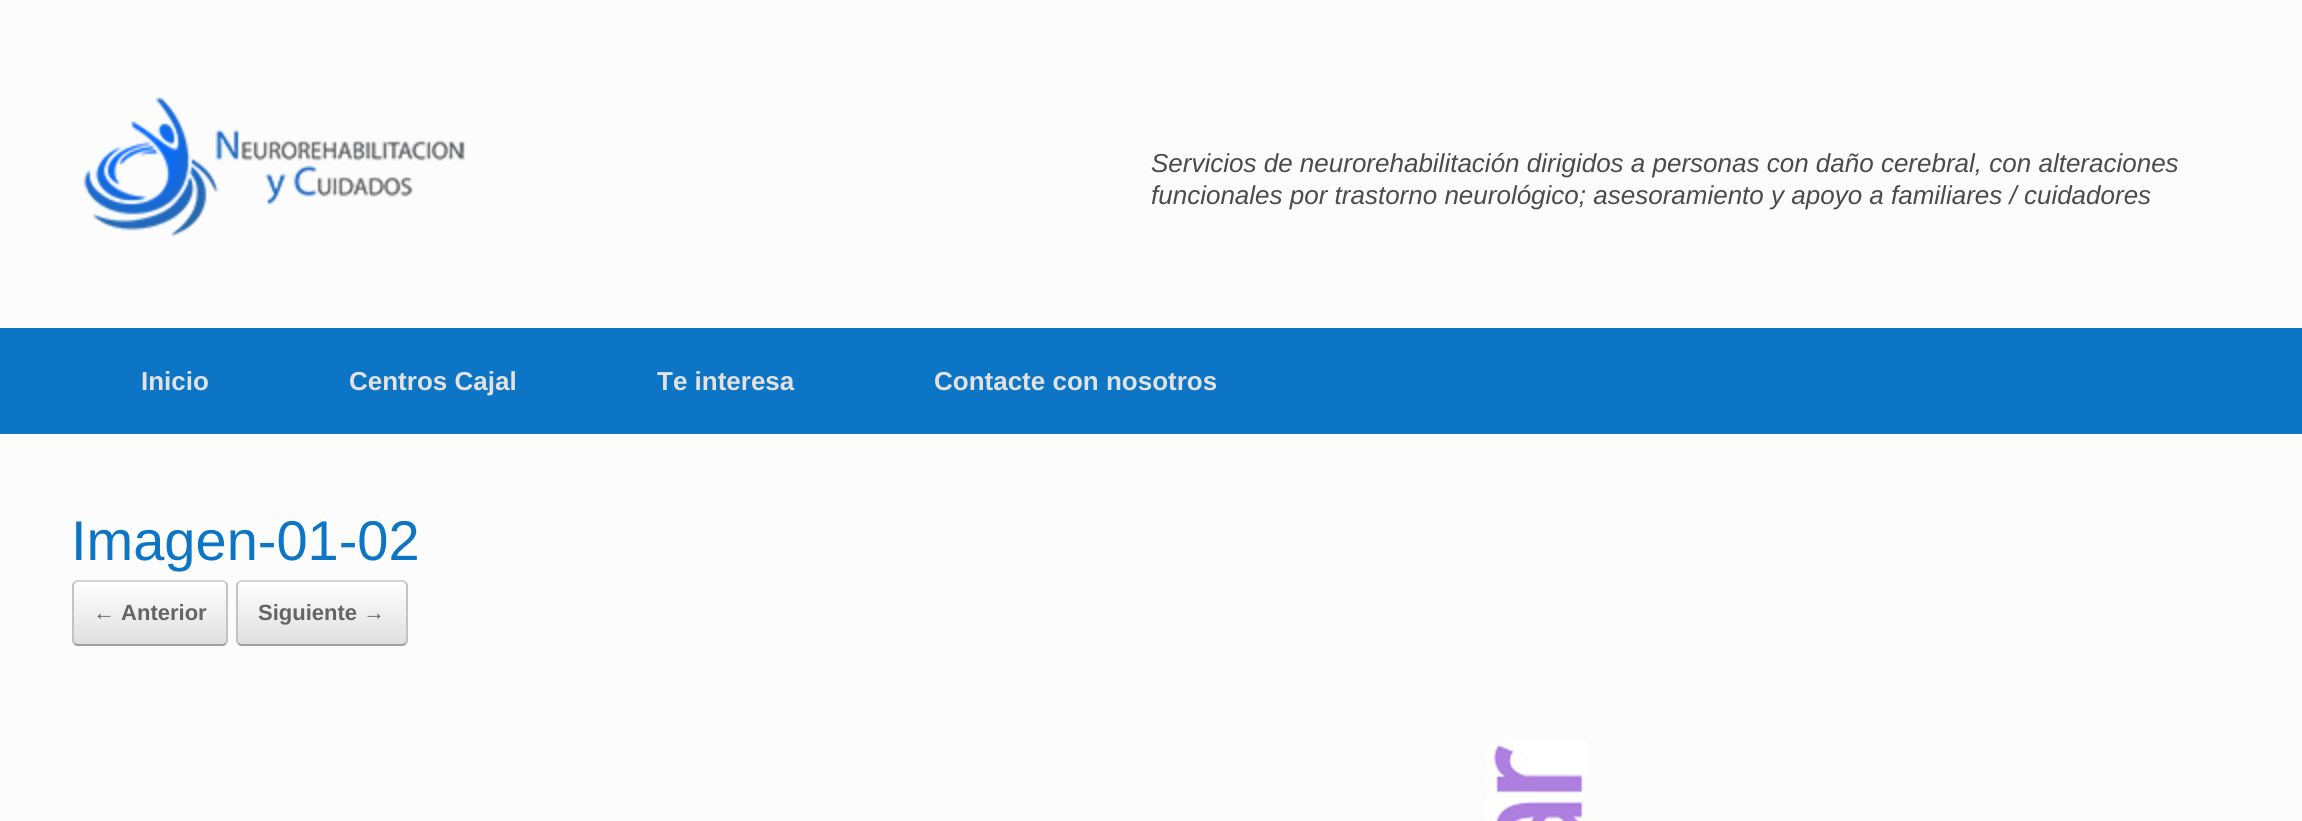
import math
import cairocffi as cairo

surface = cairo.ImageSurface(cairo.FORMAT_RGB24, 2302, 821)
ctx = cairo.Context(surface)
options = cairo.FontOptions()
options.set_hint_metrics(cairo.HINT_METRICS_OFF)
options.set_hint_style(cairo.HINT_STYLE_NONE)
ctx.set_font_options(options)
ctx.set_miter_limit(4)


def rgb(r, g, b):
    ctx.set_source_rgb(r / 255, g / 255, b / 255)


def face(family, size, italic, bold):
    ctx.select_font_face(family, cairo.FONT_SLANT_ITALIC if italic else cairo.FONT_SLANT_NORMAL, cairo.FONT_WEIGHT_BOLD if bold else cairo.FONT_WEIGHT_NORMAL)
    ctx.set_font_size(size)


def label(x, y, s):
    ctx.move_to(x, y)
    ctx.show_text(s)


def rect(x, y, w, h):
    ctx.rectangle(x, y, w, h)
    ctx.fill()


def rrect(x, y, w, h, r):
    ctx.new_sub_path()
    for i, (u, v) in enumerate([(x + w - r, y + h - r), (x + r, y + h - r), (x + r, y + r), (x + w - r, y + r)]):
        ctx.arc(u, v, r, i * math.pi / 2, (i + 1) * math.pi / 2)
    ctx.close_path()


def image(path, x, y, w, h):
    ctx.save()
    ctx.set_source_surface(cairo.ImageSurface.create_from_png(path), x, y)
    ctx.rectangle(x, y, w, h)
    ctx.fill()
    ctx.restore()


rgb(252, 252, 252)
ctx.paint()
image('image0.png', 83, 97, 382, 140)
face('Liberation Sans', 26, 1, 0)
rgb(75, 75, 75)
label(1151, 172, 'Servicios de neurorehabilitación dirigidos a personas con daño cerebral, con alteraciones')
label(1151, 204, 'funcionales por trastorno neurológico; asesoramiento y apoyo a familiares / cuidadores')
rgb(12, 117, 198)
rect(0, 328, 2302, 106)
face('Liberation Sans', 26, 0, 1)
rgb(226, 226, 226)
label(141, 390, 'Inicio')
label(349, 390, 'Centros Cajal')
label(657, 390, 'Te interesa')
label(934, 390, 'Contacte con nosotros')
face('Liberation Sans', 56, 0, 0)
rgb(12, 117, 198)
label(71, 560, 'Imagen-01-02')
ctx.save()
rrect(72, 580, 156, 66, 6)
ctx.clip()
gradient = cairo.LinearGradient(74, 644, 74, 582)
gradient.add_color_stop_rgba(0, 0.875, 0.875, 0.875, 1)
gradient.add_color_stop_rgba(1, 1, 1, 1, 1)
ctx.set_source(gradient)
rect(72, 582, 156, 62)
ctx.restore()
ctx.new_path()
ctx.move_to(74.5, 582.5)
ctx.curve_to(75.5, 581.5, 76.5, 581, 78, 581)
ctx.line_to(222, 581)
ctx.curve_to(223.5, 581, 224.5, 581.5, 225.5, 582.5)
rgb(210, 210, 210)
ctx.stroke()
ctx.new_path()
ctx.move_to(225.5, 582.5)
ctx.curve_to(226.5, 583.5, 227, 584.5, 227, 586)
ctx.line_to(227, 640)
ctx.curve_to(227, 641.5, 226.5, 642.5, 225.5, 643.5)
rgb(195, 195, 195)
ctx.stroke()
ctx.new_path()
ctx.move_to(225.5, 643.5)
ctx.curve_to(224.5, 644.5, 223.5, 645, 222, 645)
ctx.line_to(78, 645)
ctx.curve_to(76.5, 645, 75.5, 644.5, 74.5, 643.5)
rgb(159, 159, 159)
ctx.stroke()
ctx.new_path()
ctx.move_to(74.5, 643.5)
ctx.curve_to(73.5, 642.5, 73, 641.5, 73, 640)
ctx.line_to(73, 586)
ctx.curve_to(73, 584.5, 73.5, 583.5, 74.5, 582.5)
rgb(195, 195, 195)
ctx.stroke()
face('Liberation Sans', 22, 0, 1)
rgb(100, 100, 100)
label(93, 620, '← Anterior')
ctx.save()
rrect(236, 580, 172, 66, 6)
ctx.clip()
gradient = cairo.LinearGradient(238, 644, 238, 582)
gradient.add_color_stop_rgba(0, 0.875, 0.875, 0.875, 1)
gradient.add_color_stop_rgba(1, 1, 1, 1, 1)
ctx.set_source(gradient)
rect(236, 582, 172, 62)
ctx.restore()
ctx.new_path()
ctx.move_to(238.5, 582.5)
ctx.curve_to(239.5, 581.5, 240.5, 581, 242, 581)
ctx.line_to(402, 581)
ctx.curve_to(403.5, 581, 404.5, 581.5, 405.5, 582.5)
rgb(210, 210, 210)
ctx.stroke()
ctx.new_path()
ctx.move_to(405.5, 582.5)
ctx.curve_to(406.5, 583.5, 407, 584.5, 407, 586)
ctx.line_to(407, 640)
ctx.curve_to(407, 641.5, 406.5, 642.5, 405.5, 643.5)
rgb(195, 195, 195)
ctx.stroke()
ctx.new_path()
ctx.move_to(405.5, 643.5)
ctx.curve_to(404.5, 644.5, 403.5, 645, 402, 645)
ctx.line_to(242, 645)
ctx.curve_to(240.5, 645, 239.5, 644.5, 238.5, 643.5)
rgb(159, 159, 159)
ctx.stroke()
ctx.new_path()
ctx.move_to(238.5, 643.5)
ctx.curve_to(237.5, 642.5, 237, 641.5, 237, 640)
ctx.line_to(237, 586)
ctx.curve_to(237, 584.5, 237.5, 583.5, 238.5, 582.5)
rgb(195, 195, 195)
ctx.stroke()
rgb(100, 100, 100)
label(258, 620, 'Siguiente →')
image('image1.png', 1485, 741, 103, 80)
surface.write_to_png('render.png')
